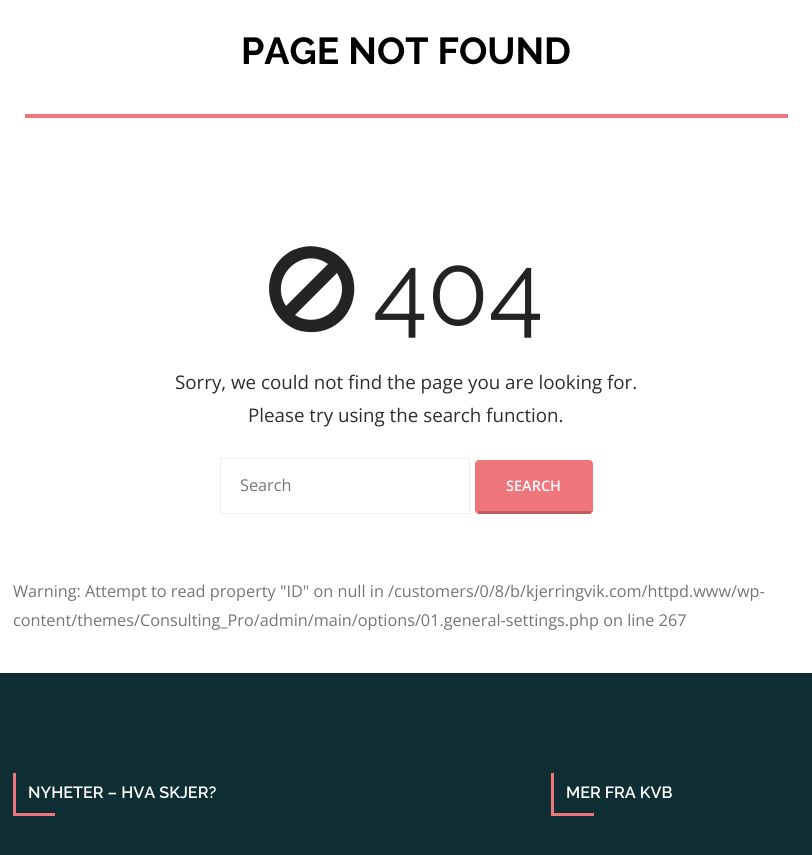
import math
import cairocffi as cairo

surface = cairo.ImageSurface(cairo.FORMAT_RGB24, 812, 855)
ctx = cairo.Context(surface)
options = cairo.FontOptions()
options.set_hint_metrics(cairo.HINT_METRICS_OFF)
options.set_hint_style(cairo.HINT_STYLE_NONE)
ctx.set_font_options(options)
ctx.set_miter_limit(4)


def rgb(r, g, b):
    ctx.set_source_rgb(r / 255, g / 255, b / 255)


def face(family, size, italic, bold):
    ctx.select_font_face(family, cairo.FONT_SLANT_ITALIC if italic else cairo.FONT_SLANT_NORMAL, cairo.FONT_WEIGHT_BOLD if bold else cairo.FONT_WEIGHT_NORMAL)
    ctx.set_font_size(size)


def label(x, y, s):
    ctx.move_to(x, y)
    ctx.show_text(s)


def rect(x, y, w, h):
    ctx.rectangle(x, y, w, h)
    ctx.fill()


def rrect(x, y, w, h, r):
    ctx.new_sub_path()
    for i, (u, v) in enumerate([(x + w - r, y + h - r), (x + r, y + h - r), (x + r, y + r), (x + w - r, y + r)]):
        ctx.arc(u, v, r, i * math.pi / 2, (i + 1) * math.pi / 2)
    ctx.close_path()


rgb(255, 255, 255)
ctx.paint()
rgb(239, 118, 122)
rect(25, 114, 763, 4)
face('Raleway', 37.5, 0, 1)
rgb(0, 0, 0)
label(241, 64, 'PAGE NOT FOUND')
rgb(35, 35, 35)
ctx.new_path()
ctx.move_to(342, 289)
ctx.curve_to(342, 283, 340, 278, 337, 273)
ctx.line_to(295, 315)
ctx.curve_to(315, 328, 342, 313, 342, 289)
ctx.close_path()
ctx.move_to(286, 306)
ctx.line_to(328, 264)
ctx.curve_to(301, 245, 268, 278, 286, 306)
ctx.close_path()
ctx.move_to(351, 272)
ctx.curve_to(360, 294, 350, 320, 328, 329)
ctx.curve_to(318, 333, 307, 333, 297, 330)
ctx.curve_to(262, 316, 259, 267, 293, 250)
ctx.curve_to(301, 247, 309, 245, 318, 247)
ctx.curve_to(333, 249, 345, 259, 351, 272)
ctx.close_path()
ctx.fill()
face('Raleway', 100, 0, 0)
label(373, 325, '404')
face('Open Sans', 18.75, 0, 0)
rgb(45, 45, 45)
label(175, 389, 'Sorry, we could not find the page you are looking for.')
label(248, 422, 'Please try using the search function.')
ctx.rectangle(220.5, 458.5, 249, 55)
rgb(238, 238, 238)
ctx.set_line_width(1)
ctx.stroke()
face('Open Sans', 16.25, 0, 0)
rgb(117, 117, 117)
label(240, 491, 'Search')
rgb(239, 118, 122)
rrect(475, 460, 118, 54, 4)
ctx.fill()
ctx.set_source_rgba(0, 0, 0, 0.2)
rect(478, 511, 113, 3)
face('Open Sans SemiBold', 14.5, 0, 0)
rgb(255, 255, 255)
label(506, 491, 'SEARCH')
face('Open Sans', 16.25, 0, 0)
rgb(117, 117, 117)
label(13, 597, 'Warning: Attempt to read property "ID" on null in /customers/0/8/b/kjerringvik.com/httpd.www/wp-')
label(13, 626, 'content/themes/Consulting_Pro/admin/main/options/01.general-settings.php on line 267')
rgb(14, 46, 51)
rect(0, 673, 812, 182)
rgb(239, 118, 122)
rect(13, 813, 42, 3)
rect(13, 773, 3, 42)
face('Raleway SemiBold', 16.25, 0, 0)
rgb(255, 255, 255)
label(28, 798, 'NYHETER – HVA SKJER?')
rgb(239, 118, 122)
rect(551, 813, 43, 3)
rect(551, 773, 3, 42)
rgb(255, 255, 255)
label(566, 798, 'MER FRA KVB')
surface.write_to_png('render.png')
